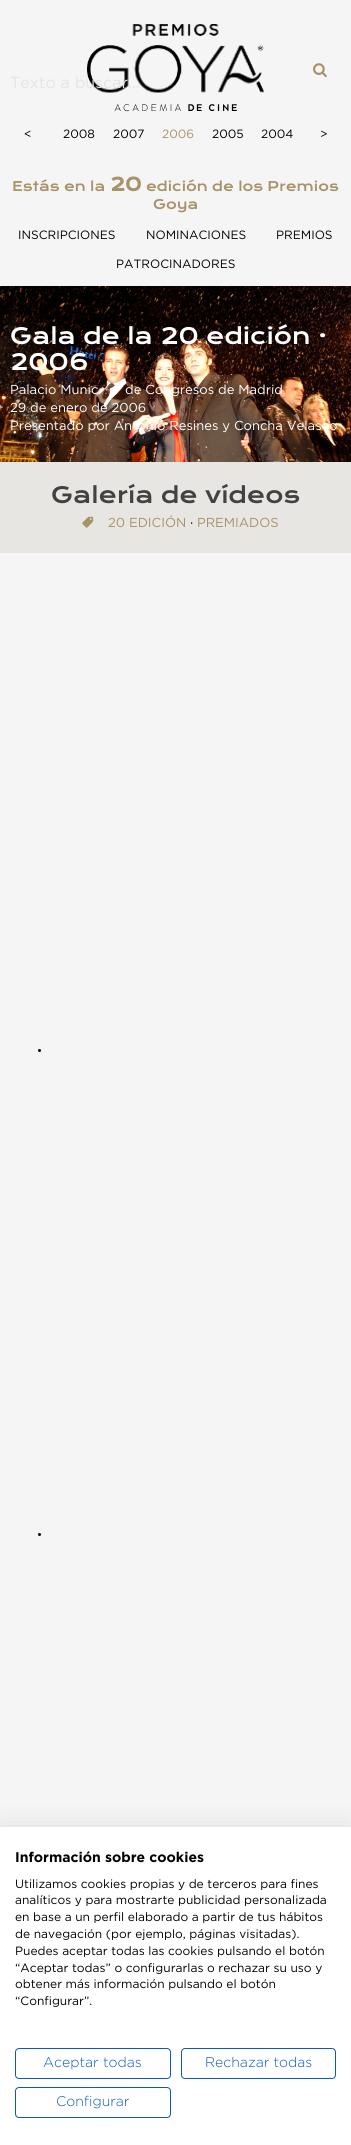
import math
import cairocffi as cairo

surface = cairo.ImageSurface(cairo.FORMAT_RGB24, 351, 2145)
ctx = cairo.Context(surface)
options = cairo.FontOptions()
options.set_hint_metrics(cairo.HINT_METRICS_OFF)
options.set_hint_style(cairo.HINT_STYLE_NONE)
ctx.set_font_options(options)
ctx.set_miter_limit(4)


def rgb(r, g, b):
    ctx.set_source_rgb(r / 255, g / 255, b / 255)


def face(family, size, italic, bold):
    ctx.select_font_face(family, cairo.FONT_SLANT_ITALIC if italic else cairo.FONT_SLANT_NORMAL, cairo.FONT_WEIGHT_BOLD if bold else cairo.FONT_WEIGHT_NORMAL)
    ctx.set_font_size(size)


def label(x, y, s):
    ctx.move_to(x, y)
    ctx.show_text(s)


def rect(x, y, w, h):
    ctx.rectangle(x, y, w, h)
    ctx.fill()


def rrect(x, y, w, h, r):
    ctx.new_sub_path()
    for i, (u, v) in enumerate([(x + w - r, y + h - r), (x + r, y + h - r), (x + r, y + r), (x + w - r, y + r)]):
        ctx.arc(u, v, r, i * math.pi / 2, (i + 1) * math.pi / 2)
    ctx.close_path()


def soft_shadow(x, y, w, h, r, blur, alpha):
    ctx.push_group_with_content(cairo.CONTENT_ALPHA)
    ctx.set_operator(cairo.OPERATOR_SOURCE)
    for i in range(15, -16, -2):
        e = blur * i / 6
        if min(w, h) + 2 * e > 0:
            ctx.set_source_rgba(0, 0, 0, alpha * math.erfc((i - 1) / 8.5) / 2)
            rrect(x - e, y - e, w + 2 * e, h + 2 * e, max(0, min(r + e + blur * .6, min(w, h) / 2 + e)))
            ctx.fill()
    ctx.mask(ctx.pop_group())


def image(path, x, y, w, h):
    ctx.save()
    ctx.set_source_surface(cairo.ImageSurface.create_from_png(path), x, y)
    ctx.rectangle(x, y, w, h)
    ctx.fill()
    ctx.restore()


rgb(245, 245, 245)
ctx.paint()
image('image0.png', 313, 63, 14, 15)
image('image1.png', 87, 24, 177, 88)
face('Gotham', 16, 0, 0)
rgb(228, 228, 228)
label(10, 88, 'Texto a buscar…')
face('Gotham', 12, 0, 0)
rgb(0, 0, 0)
label(24, 138, '<')
label(63, 138, '2008')
label(113, 138, '2007')
rgb(168, 146, 103)
label(162, 138, '2006')
rgb(0, 0, 0)
label(212, 138, '2005')
label(261, 138, '2004')
label(320, 138, '>')
face('Krona One', 13, 0, 0)
rgb(168, 146, 103)
label(12, 191, 'Estás en la')
face('Krona One', 18, 0, 1)
label(110, 191, '20')
face('Krona One', 13, 0, 0)
label(146, 191, 'edición de los Premios')
label(153, 209, 'Goya')
face('Gotham', 12, 0, 0)
rgb(0, 0, 0)
label(18, 239, 'INSCRIPCIONES')
label(146, 239, 'NOMINACIONES')
label(276, 239, 'PREMIOS')
label(116, 268, 'PATROCINADORES')
image('image2.png', 0, 286, 351, 176)
face('Krona One', 22, 0, 0)
rgb(255, 255, 255)
label(10, 344, 'Gala de la 20 edición ·')
label(10, 370, '2006')
face('Gotham', 13, 0, 0)
label(10, 394, 'Palacio Munic')
label(125, 394, 'de Congresos de Madrid')
label(10, 412, '29 de enero de 2006')
label(10, 430, 'Presentado por Antonio Resines y Concha Velasco')
rgb(232, 230, 226)
rect(0, 462, 351, 91)
face('Krona One', 22, 0, 0)
rgb(66, 66, 66)
label(51, 503, 'Galería de vídeos')
image('image3.png', 82, 516, 12, 12)
face('Gotham', 13, 0, 0)
rgb(168, 146, 103)
label(108, 527, '20 EDICIÓN')
rgb(0, 0, 0)
label(190, 527, '·')
rgb(168, 146, 103)
label(197, 527, 'PREMIADOS')
rgb(0, 0, 0)
ctx.new_path()
ctx.arc(39.5, 1050.5, 1.5, 0, 2 * math.pi)
ctx.fill()
ctx.arc(39.5, 1534.5, 1.5, 0, 2 * math.pi)
ctx.fill()
rgb(0, 0, 0)
soft_shadow(0, 1827, 351, 318, 0, 12, 0.1)
rgb(255, 255, 255)
rect(0, 1827, 351, 318)
face('Gotham', 14, 0, 1)
rgb(0, 0, 0)
label(15, 1862, 'Información sobre cookies')
face('Gotham', 12, 0, 0)
label(15, 1888, 'Utilizamos cookies propias y de terceros para fines')
label(15, 1904, 'analíticos y para mostrarte publicidad personalizada')
label(15, 1921, 'en base a un perfil elaborado a partir de tus hábitos')
label(15, 1938, 'de navegación (por ejemplo, páginas visitadas).')
label(15, 1955, 'Puedes aceptar todas las cookies pulsando el botón')
label(15, 1972, '“Aceptar todas” o configurarlas o rechazar su uso y')
label(15, 1988, 'obtener más información pulsando el botón')
label(15, 2005, '“Configurar”.')
rrect(15.5, 2048.5, 155, 30, 3.5)
rgb(13, 86, 201)
ctx.set_line_width(1)
ctx.stroke()
face('Gotham Light', 14, 0, 0)
label(43, 2067, 'Aceptar todas')
rrect(181.5, 2048.5, 154, 30, 3.5)
ctx.stroke()
label(205, 2067, 'Rechazar todas')
rrect(15.5, 2087.5, 155, 30, 3.5)
ctx.stroke()
label(56, 2106, 'Configurar')
surface.write_to_png('render.png')
